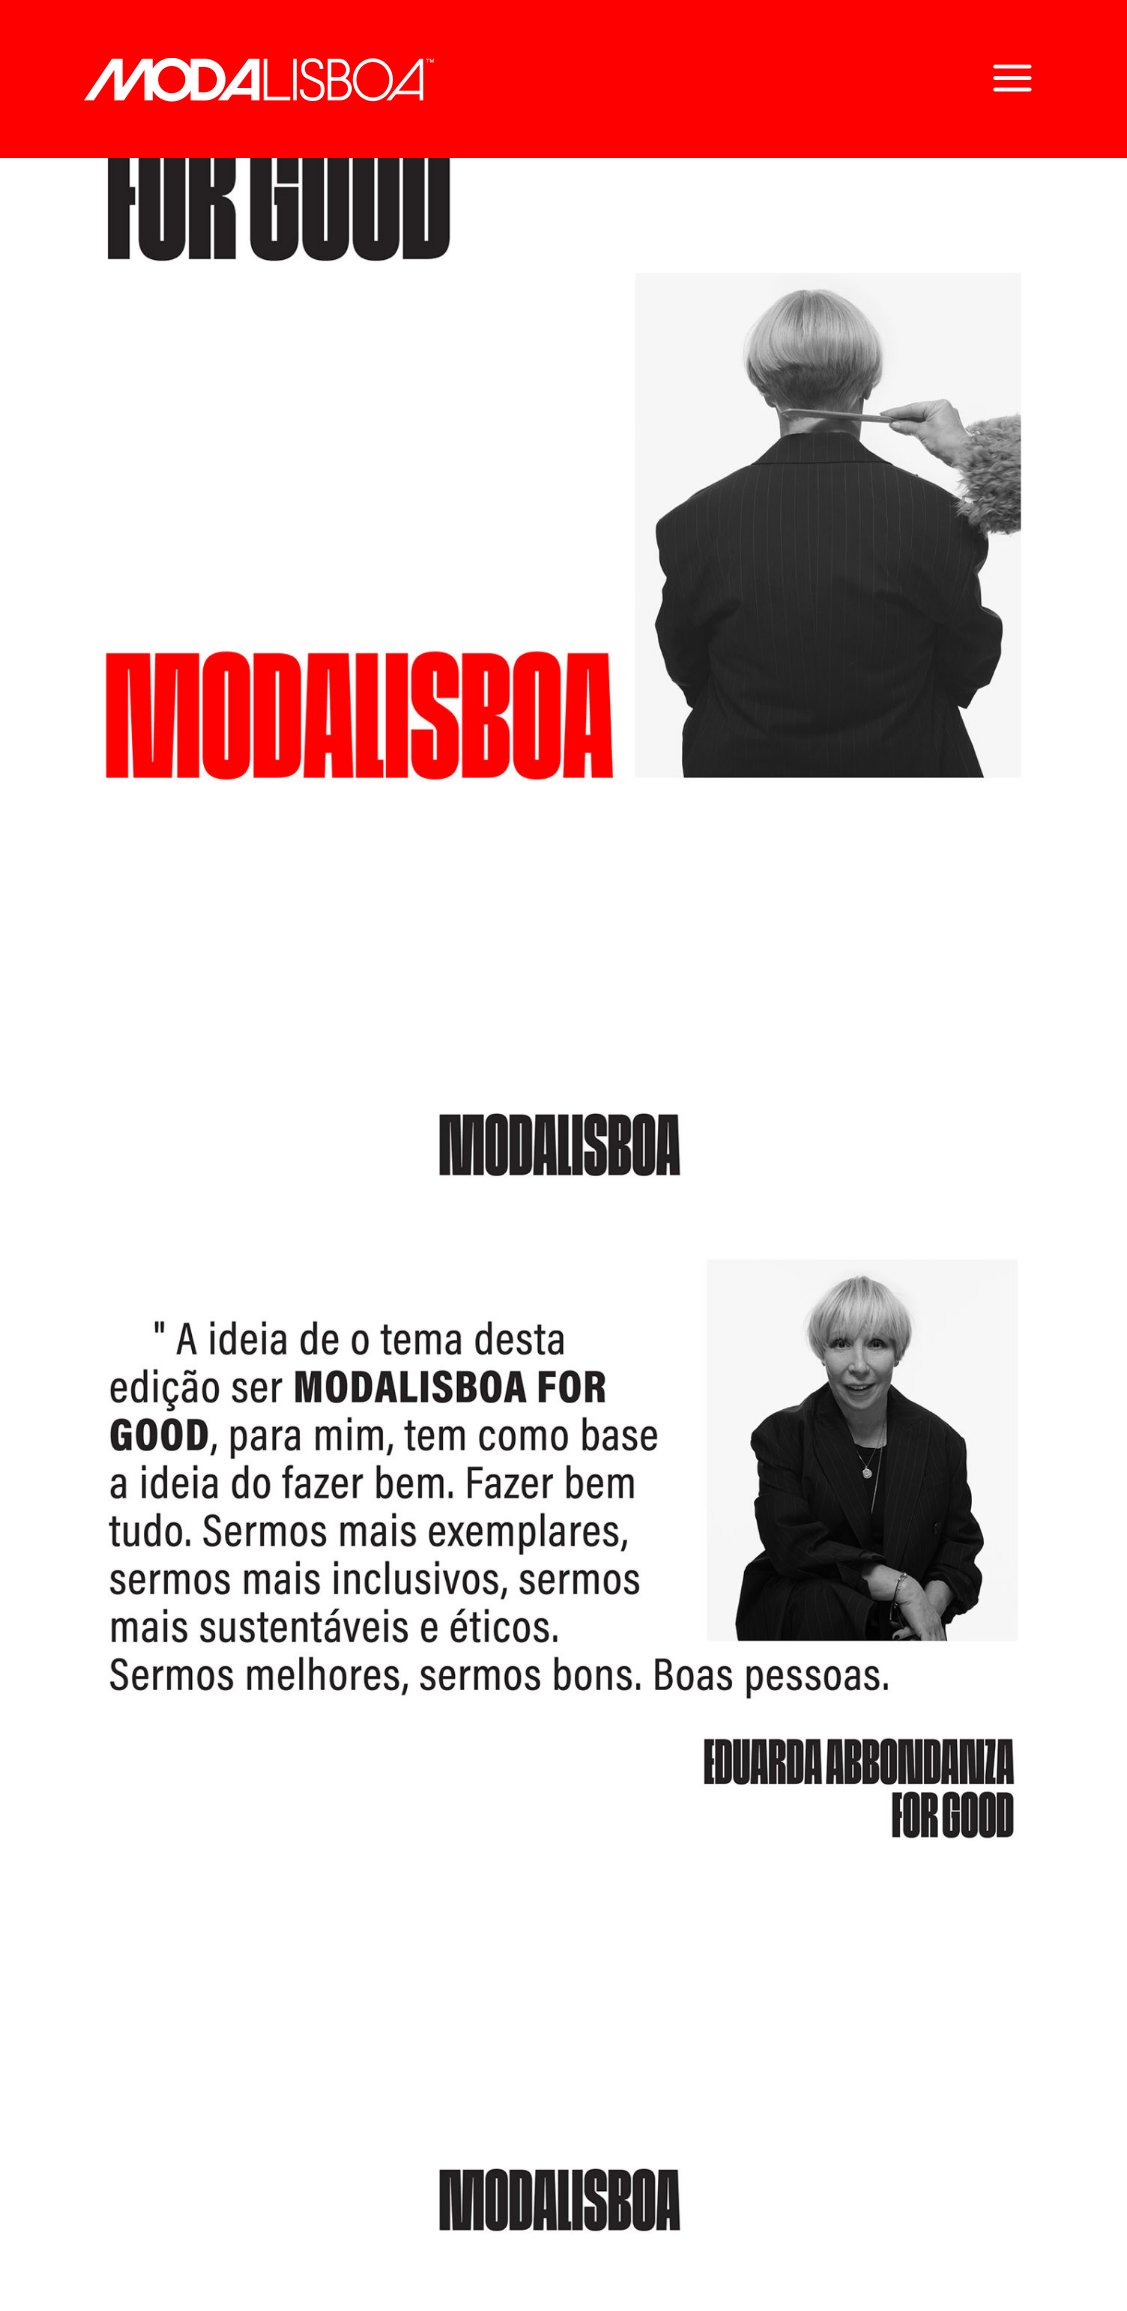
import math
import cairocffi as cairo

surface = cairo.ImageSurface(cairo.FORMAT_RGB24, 1127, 2311)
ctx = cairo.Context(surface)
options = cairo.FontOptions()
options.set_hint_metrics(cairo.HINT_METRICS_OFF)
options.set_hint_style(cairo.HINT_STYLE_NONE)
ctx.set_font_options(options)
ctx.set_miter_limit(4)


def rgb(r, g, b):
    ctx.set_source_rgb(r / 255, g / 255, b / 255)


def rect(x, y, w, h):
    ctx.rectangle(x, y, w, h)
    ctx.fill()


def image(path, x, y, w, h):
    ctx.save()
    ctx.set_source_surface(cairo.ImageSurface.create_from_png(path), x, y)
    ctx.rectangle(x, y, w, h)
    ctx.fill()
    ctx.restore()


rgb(255, 255, 255)
ctx.paint()
rgb(255, 0, 0)
rect(0, 0, 1127, 158)
image('image0.png', 84, 58, 350, 44)
image('image1.png', 993, 64, 39, 28)
image('image2.png', 102, 158, 921, 625)
image('image3.png', 108, 1112, 910, 729)
image('image4.png', 438, 2167, 245, 67)
surface.write_to_png('render.png')
